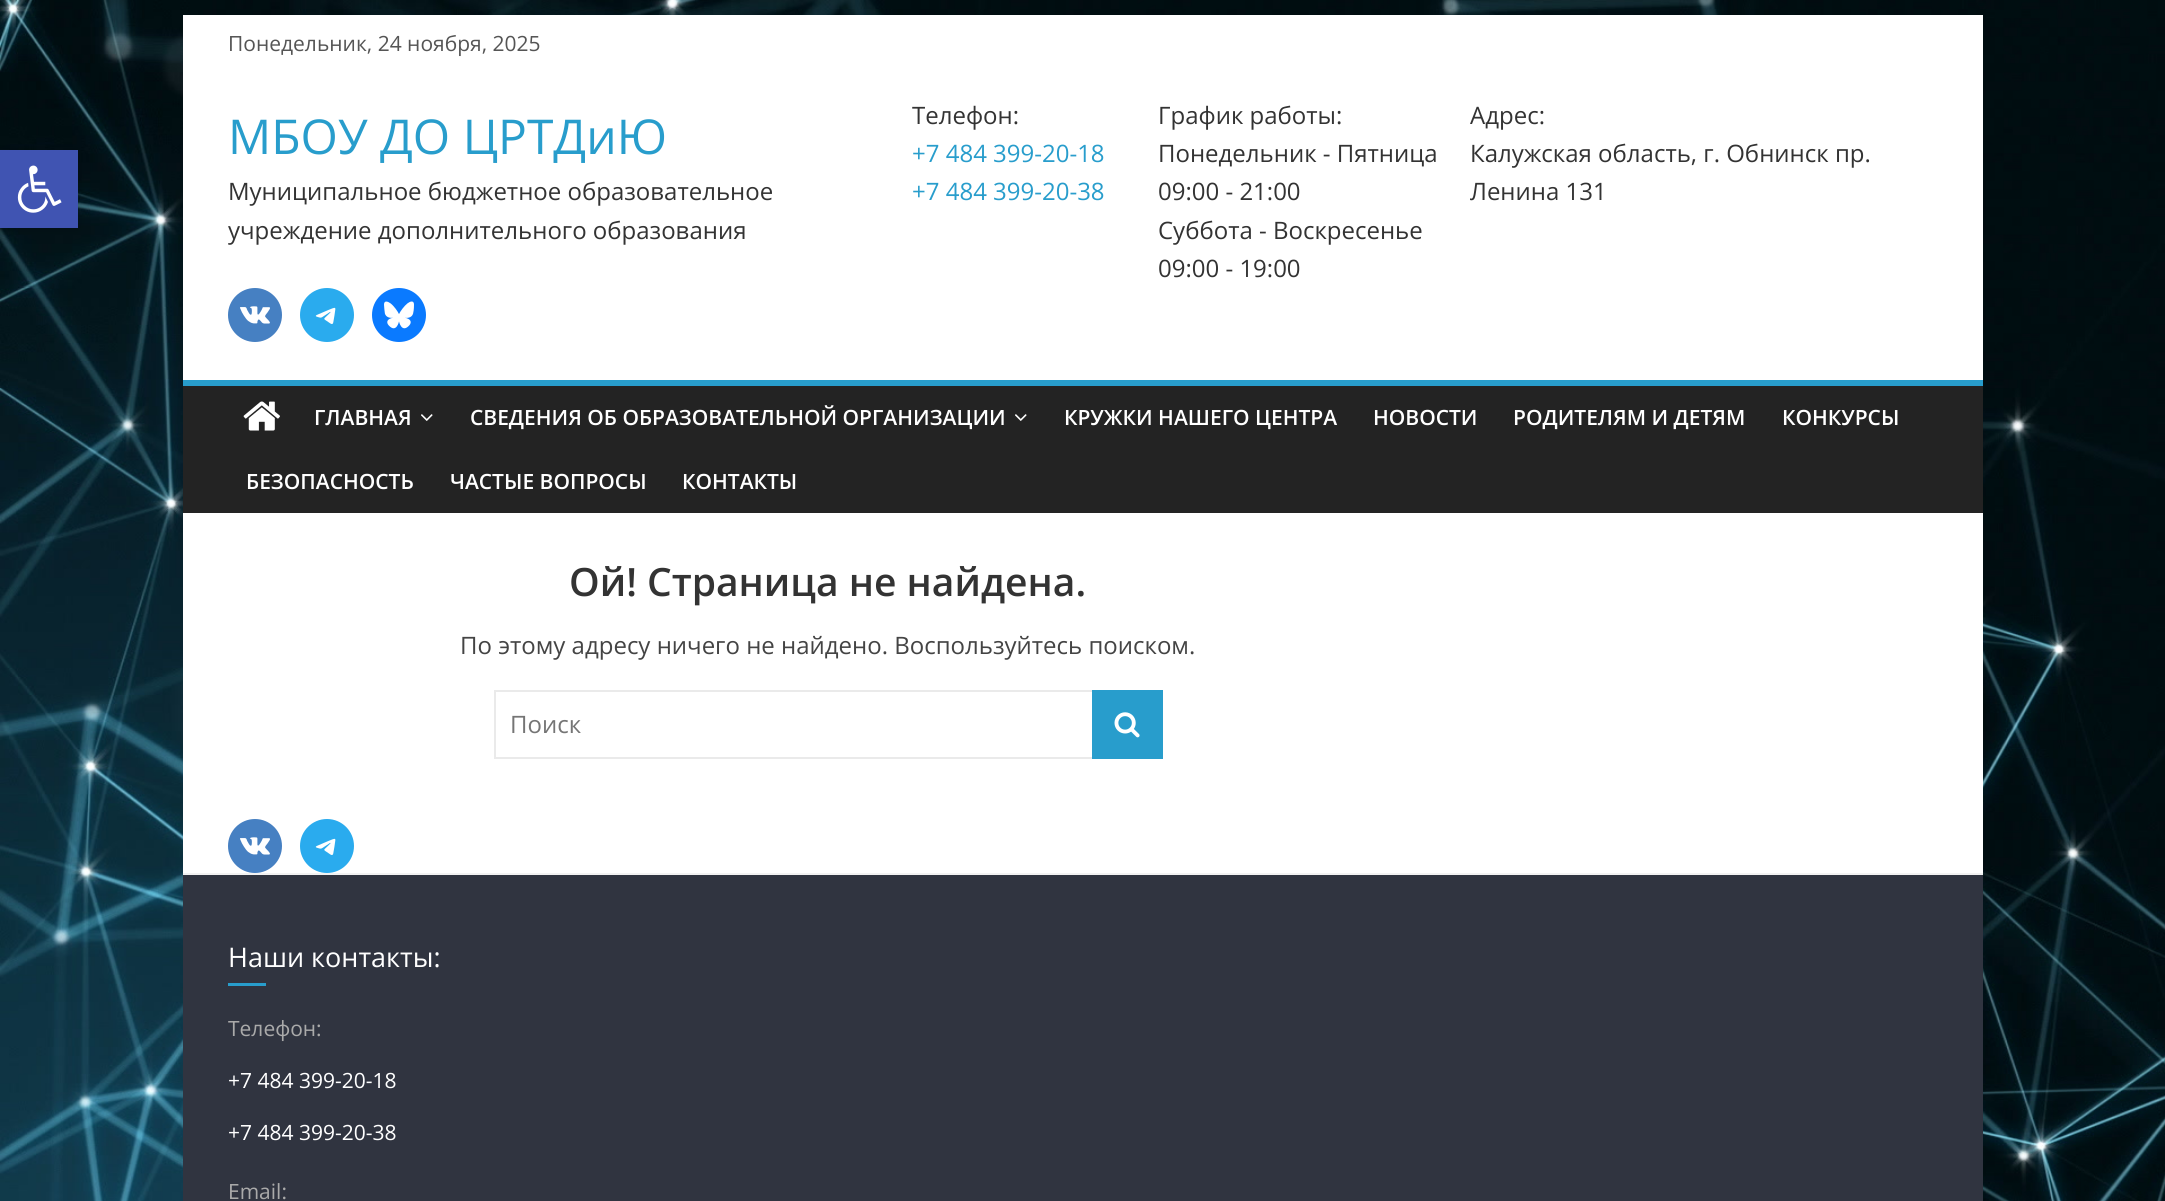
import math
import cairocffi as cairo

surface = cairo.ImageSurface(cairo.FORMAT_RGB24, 2165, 1201)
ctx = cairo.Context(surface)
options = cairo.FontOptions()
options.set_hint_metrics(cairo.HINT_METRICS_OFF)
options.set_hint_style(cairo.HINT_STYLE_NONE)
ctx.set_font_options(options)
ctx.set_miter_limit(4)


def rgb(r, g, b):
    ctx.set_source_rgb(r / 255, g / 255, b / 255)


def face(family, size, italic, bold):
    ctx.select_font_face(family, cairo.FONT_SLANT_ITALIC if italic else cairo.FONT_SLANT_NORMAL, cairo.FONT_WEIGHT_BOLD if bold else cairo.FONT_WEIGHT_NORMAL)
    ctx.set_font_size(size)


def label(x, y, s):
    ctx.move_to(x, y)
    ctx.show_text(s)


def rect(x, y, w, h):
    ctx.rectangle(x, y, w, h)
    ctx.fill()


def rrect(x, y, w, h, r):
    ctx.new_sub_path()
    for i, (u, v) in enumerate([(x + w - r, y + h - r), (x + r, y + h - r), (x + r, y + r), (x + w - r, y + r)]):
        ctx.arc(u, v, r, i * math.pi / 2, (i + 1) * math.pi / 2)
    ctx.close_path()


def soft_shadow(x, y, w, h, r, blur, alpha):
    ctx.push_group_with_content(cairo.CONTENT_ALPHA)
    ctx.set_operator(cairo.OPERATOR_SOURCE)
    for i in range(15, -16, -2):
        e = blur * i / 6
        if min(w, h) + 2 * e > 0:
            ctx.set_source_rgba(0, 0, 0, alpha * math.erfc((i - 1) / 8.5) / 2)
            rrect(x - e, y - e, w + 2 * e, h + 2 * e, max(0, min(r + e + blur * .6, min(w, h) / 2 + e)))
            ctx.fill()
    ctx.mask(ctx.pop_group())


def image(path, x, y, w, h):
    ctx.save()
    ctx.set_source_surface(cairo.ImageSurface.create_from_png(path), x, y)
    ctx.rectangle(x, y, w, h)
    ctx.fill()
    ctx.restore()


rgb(255, 255, 255)
ctx.paint()
image('image0.png', 0, 0, 2165, 1201)
rgb(0, 0, 0)
soft_shadow(0, 150, 78, 78, 0, 7.5, 0.1)
rgb(64, 84, 178)
rect(0, 150, 78, 78)
image('image1.png', 17, 165, 45, 48)
rgb(255, 255, 255)
rect(183, 15, 1800, 365)
face('Open Sans', 21, 0, 0)
rgb(85, 85, 85)
label(228, 51, 'Понедельник, 24 ноября, 2025')
face('Open Sans', 48, 0, 0)
rgb(40, 157, 204)
label(228, 154, 'МБОУ ДО ЦРТДиЮ')
face('Open Sans', 24, 0, 0)
rgb(51, 51, 51)
label(228, 200, 'Муниципальное бюджетное образовательное')
label(228, 239, 'учреждение дополнительного образования')
label(912, 124, 'Телефон:')
rgb(40, 157, 204)
label(912, 162, '+7 484 399-20-18')
label(912, 200, '+7 484 399-20-38')
rgb(51, 51, 51)
label(1158, 124, 'График работы:')
label(1158, 162, 'Понедельник - Пятница')
label(1158, 200, '09:00 - 21:00')
label(1158, 239, 'Суббота - Воскресенье')
label(1158, 277, '09:00 - 19:00')
label(1470, 124, 'Адрес:')
label(1470, 162, 'Калужская область, г. Обнинск пр.')
label(1470, 200, 'Ленина 131')
rgb(70, 128, 194)
ctx.new_path()
ctx.arc(255, 315, 27, 0, 2 * math.pi)
ctx.fill()
image('image2.png', 240, 306, 30, 18)
rgb(42, 171, 238)
ctx.arc(327, 315, 27, 0, 2 * math.pi)
ctx.fill()
image('image3.png', 315, 307, 21, 17)
rgb(10, 122, 255)
ctx.arc(399, 315, 27, 0, 2 * math.pi)
ctx.fill()
image('image4.png', 384, 301, 30, 28)
rgb(35, 35, 35)
rect(183, 386, 1800, 127)
rgb(40, 157, 204)
rect(183, 380, 1800, 6)
image('image5.png', 243, 401, 37, 30)
face('Open Sans SemiBold', 21, 0, 0)
rgb(255, 255, 255)
label(314, 425, 'ГЛАВНАЯ')
image('image6.png', 421, 414, 12, 7)
label(470, 425, 'СВЕДЕНИЯ ОБ ОБРАЗОВАТЕЛЬНОЙ ОРГАНИЗАЦИИ')
image('image6.png', 1015, 414, 12, 7)
label(1064, 425, 'КРУЖКИ НАШЕГО ЦЕНТРА')
label(1373, 425, 'НОВОСТИ')
label(1513, 425, 'РОДИТЕЛЯМ И ДЕТЯМ')
label(1782, 425, 'КОНКУРСЫ')
label(246, 489, 'БЕЗОПАСНОСТЬ')
label(450, 489, 'ЧАСТЫЕ ВОПРОСЫ')
label(682, 489, 'КОНТАКТЫ')
rect(183, 513, 1800, 360)
face('Open Sans SemiBold', 39, 0, 0)
rgb(51, 51, 51)
label(569, 596, 'Ой! Страница не найдена.')
face('Open Sans', 24, 0, 0)
rgb(68, 68, 68)
label(460, 654, 'По этому адресу ничего не найдено. Воспользуйтесь поиском.')
ctx.rectangle(495, 691, 598, 67)
rgb(234, 234, 234)
ctx.stroke()
rgb(117, 117, 117)
label(510, 733, 'Поиск')
rgb(40, 157, 204)
rect(1092, 690, 71, 69)
image('image7.png', 1114, 712, 26, 26)
rgb(70, 128, 194)
ctx.arc(255, 846, 27, 0, 2 * math.pi)
ctx.fill()
image('image2.png', 240, 837, 30, 18)
rgb(42, 171, 238)
ctx.arc(327, 846, 27, 0, 2 * math.pi)
ctx.fill()
image('image3.png', 315, 838, 21, 17)
rgb(48, 52, 64)
rect(183, 875, 1800, 326)
rgb(242, 242, 242)
rect(183, 873, 1800, 2)
face('Open Sans', 27, 0, 0)
rgb(255, 255, 255)
label(228, 967, 'Наши контакты:')
rgb(40, 157, 204)
rect(228, 983, 38, 3)
face('Open Sans', 21, 0, 0)
rgb(170, 170, 170)
label(228, 1036, 'Телефон:')
rgb(255, 255, 255)
label(228, 1088, '+7 484 399-20-18')
label(228, 1140, '+7 484 399-20-38')
rgb(170, 170, 170)
label(228, 1199, 'Email:')
surface.write_to_png('render.png')
